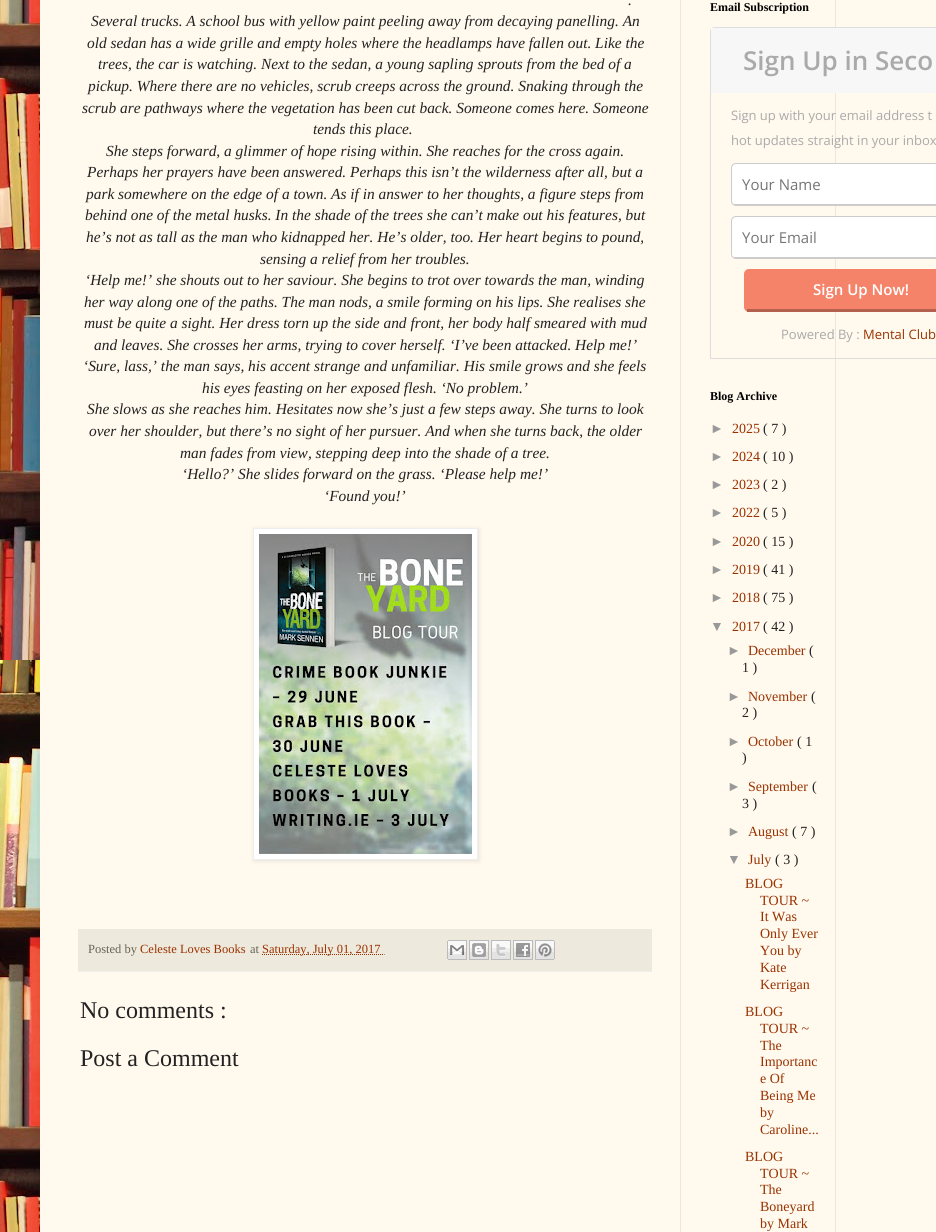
import math
import cairocffi as cairo

surface = cairo.ImageSurface(cairo.FORMAT_RGB24, 936, 1232)
ctx = cairo.Context(surface)
options = cairo.FontOptions()
options.set_hint_metrics(cairo.HINT_METRICS_OFF)
options.set_hint_style(cairo.HINT_STYLE_NONE)
ctx.set_font_options(options)
ctx.set_miter_limit(4)


def rgb(r, g, b):
    ctx.set_source_rgb(r / 255, g / 255, b / 255)


def face(family, size, italic, bold):
    ctx.select_font_face(family, cairo.FONT_SLANT_ITALIC if italic else cairo.FONT_SLANT_NORMAL, cairo.FONT_WEIGHT_BOLD if bold else cairo.FONT_WEIGHT_NORMAL)
    ctx.set_font_size(size)


def label(x, y, s):
    ctx.move_to(x, y)
    ctx.show_text(s)


def rect(x, y, w, h):
    ctx.rectangle(x, y, w, h)
    ctx.fill()


def rrect(x, y, w, h, r):
    ctx.new_sub_path()
    for i, (u, v) in enumerate([(x + w - r, y + h - r), (x + r, y + h - r), (x + r, y + r), (x + w - r, y + r)]):
        ctx.arc(u, v, r, i * math.pi / 2, (i + 1) * math.pi / 2)
    ctx.close_path()


def soft_shadow(x, y, w, h, r, blur, alpha):
    ctx.push_group_with_content(cairo.CONTENT_ALPHA)
    ctx.set_operator(cairo.OPERATOR_SOURCE)
    for i in range(15, -16, -2):
        e = blur * i / 6
        if min(w, h) + 2 * e > 0:
            ctx.set_source_rgba(0, 0, 0, alpha * math.erfc((i - 1) / 8.5) / 2)
            rrect(x - e, y - e, w + 2 * e, h + 2 * e, max(0, min(r + e + blur * .6, min(w, h) / 2 + e)))
            ctx.fill()
    ctx.mask(ctx.pop_group())


def image(path, x, y, w, h):
    ctx.save()
    ctx.set_source_surface(cairo.ImageSurface.create_from_png(path), x, y)
    ctx.rectangle(x, y, w, h)
    ctx.fill()
    ctx.restore()


rgb(255, 255, 255)
ctx.paint()
image('image0.png', 0, 0, 40, 1232)
rgb(0, 0, 0)
soft_shadow(40, -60, 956, 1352, 0, 20, 0.15)
rgb(255, 249, 238)
rect(40, 0, 896, 1232)
rgb(238, 229, 221)
rect(680, 0, 1, 1232)
face('Liberation Serif', 15.4, 1, 0)
rgb(34, 34, 34)
label(628, 5, '.')
label(91, 26, 'Several trucks. A school bus with yellow paint peeling away from decaying panelling. An')
label(87, 48, 'old sedan has a wide grille and empty holes where the headlamps have fallen out. Like the')
label(98, 69, 'trees, the car is watching. Next to the sedan, a young sapling sprouts from the bed of a')
label(88, 91, 'pickup. Where there are no vehicles, scrub creeps across the ground. Snaking through the')
label(82, 113, 'scrub are pathways where the vegetation has been cut back. Someone comes here. Someone')
label(313, 134, 'tends this place.')
label(106, 156, 'She steps forward, a glimmer of hope rising within. She reaches for the cross again.')
label(87, 177, 'Perhaps her prayers have been answered. Perhaps this isn’t the wilderness after all, but a')
label(86, 199, 'park somewhere on the edge of a town. As if in answer to her thoughts, a figure steps from')
label(85, 220, 'behind one of the metal husks. In the shade of the trees she can’t make out his features, but')
label(86, 242, 'he’s not as tall as the man who kidnapped her. He’s older, too. Her heart begins to pound,')
label(260, 264, 'sensing a relief from her troubles.')
label(85, 285, '‘Help me!’ she shouts out to her saviour. She begins to trot over towards the man, winding')
label(84, 307, 'her way along one of the paths. The man nods, a smile forming on his lips. She realises she')
label(84, 328, 'must be quite a sight. Her dress torn up the side and front, her body half smeared with mud')
label(94, 350, 'and leaves. She crosses her arms, trying to cover herself. ‘I’ve been attacked. Help me!’')
label(83, 371, '‘Sure, lass,’ the man says, his accent strange and unfamiliar. His smile grows and she feels')
label(202, 393, 'his eyes feasting on her exposed flesh. ‘No problem.’')
label(87, 414, 'She slows as she reaches him. Hesitates now she’s just a few steps away. She turns to look')
label(89, 436, 'over her shoulder, but there’s no sight of her pursuer. And when she turns back, the older')
label(180, 458, 'man fades from view, stepping deep into the shade of a tree.')
label(182, 479, '‘Hello?’ She slides forward on the grass. ‘Please help me!’')
label(324, 501, '‘Found you!’')
rgb(0, 0, 0)
soft_shadow(254, 529, 225, 332, 0, 2.5, 0.1)
rgb(255, 255, 255)
ctx.rectangle(253.5, 528.5, 224, 331)
ctx.fill_preserve()
rgb(238, 238, 238)
ctx.set_line_width(1)
ctx.stroke()
image('image1.png', 259, 534, 213, 320)
rgb(238, 233, 221)
rect(78, 929, 574, 42)
rgb(238, 238, 238)
rect(78, 971, 574, 1)
face('Liberation Serif', 12.5, 0, 0)
rgb(102, 101, 85)
label(88, 953, 'Posted by')
rgb(153, 50, 0)
label(140, 953, 'Celeste Loves Books')
rgb(102, 101, 85)
label(250, 953, 'at')
ctx.new_path()
ctx.move_to(262, 954.5)
ctx.line_to(384.5, 954.5)
rgb(153, 50, 0)
ctx.set_dash([1, 1])
ctx.stroke()
label(262, 953, 'Saturday, July 01, 2017')
image('image2.png', 447, 940, 20, 20)
image('image3.png', 469, 940, 20, 20)
image('image4.png', 491, 940, 20, 20)
image('image5.png', 513, 940, 20, 20)
image('image6.png', 535, 940, 20, 20)
face('Liberation Serif', 24, 0, 0)
rgb(34, 34, 34)
label(80, 1018, 'No comments :')
label(80, 1066, 'Post a Comment')
rgb(238, 229, 221)
rect(835, 0, 1, 1232)
face('Liberation Serif', 12, 0, 1)
rgb(0, 0, 0)
label(710, 11, 'Email Subscription')
ctx.new_path()
ctx.move_to(715, 27.5)
ctx.line_to(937, 27.5)
ctx.curve_to(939.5, 27.5, 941.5, 29.5, 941.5, 32)
ctx.line_to(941.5, 358.5)
ctx.line_to(710.5, 358.5)
ctx.line_to(710.5, 32)
ctx.curve_to(710.5, 29.5, 712.5, 27.5, 715, 27.5)
ctx.close_path()
rgb(221, 221, 221)
ctx.set_dash([])
ctx.stroke()
rgb(247, 247, 247)
rect(711, 28, 225, 65)
face('Open Sans SemiBold', 26, 0, 0)
rgb(170, 170, 170)
label(743, 70, 'Sign Up in Seco')
face('Open Sans', 13, 0, 0)
label(731, 120, 'Sign up with your email address t')
label(731, 145, 'hot updates straight in your inbox')
rgb(255, 255, 255)
ctx.new_path()
ctx.move_to(736, 164)
ctx.line_to(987, 164)
ctx.curve_to(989, 164, 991, 166, 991, 168)
ctx.line_to(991, 201)
ctx.curve_to(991, 203, 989, 204, 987, 204)
ctx.line_to(736, 204)
ctx.curve_to(734, 204, 732, 203, 732, 201)
ctx.line_to(732, 168)
ctx.curve_to(732, 166, 734, 164, 736, 164)
ctx.close_path()
ctx.fill()
rrect(731.5, 163.5, 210, 42, 4.5)
rgb(204, 204, 204)
ctx.stroke()
rect(734, 204, 202, 1)
face('Open Sans', 15, 0, 0)
rgb(117, 117, 117)
label(742, 190, 'Your Name')
rgb(255, 255, 255)
ctx.new_path()
ctx.move_to(736, 217)
ctx.line_to(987, 217)
ctx.curve_to(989, 217, 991, 219, 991, 221)
ctx.line_to(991, 254)
ctx.curve_to(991, 256, 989, 257, 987, 257)
ctx.line_to(736, 257)
ctx.curve_to(734, 257, 732, 256, 732, 254)
ctx.line_to(732, 221)
ctx.curve_to(732, 219, 734, 217, 736, 217)
ctx.close_path()
ctx.fill()
rrect(731.5, 216.5, 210, 42, 4.5)
rgb(204, 204, 204)
ctx.stroke()
rect(734, 257, 202, 1)
rgb(117, 117, 117)
label(742, 243, 'Your Email')
rgb(244, 131, 106)
rrect(744, 269, 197, 43, 5)
ctx.fill()
rgb(179, 97, 78)
rect(747, 309, 189, 3)
face('Open Sans SemiBold', 15, 0, 0)
rgb(255, 255, 255)
label(813, 295, 'Sign Up Now!')
face('Open Sans', 13, 0, 0)
rgb(170, 170, 170)
label(781, 339, 'Powered By :')
rgb(153, 50, 0)
label(863, 339, 'Mental Club')
face('Liberation Serif', 12, 0, 1)
rgb(0, 0, 0)
label(710, 400, 'Blog Archive')
face('Liberation Sans', 14, 0, 0)
rgb(153, 153, 153)
label(710, 433, '►')
face('Liberation Serif', 14, 0, 0)
rgb(153, 50, 0)
label(732, 433, '2025')
rgb(34, 34, 34)
label(763, 433, '( 7 )')
face('Liberation Sans', 14, 0, 0)
rgb(153, 153, 153)
label(710, 461, '►')
face('Liberation Serif', 14, 0, 0)
rgb(153, 50, 0)
label(732, 461, '2024')
rgb(34, 34, 34)
label(763, 461, '( 10 )')
face('Liberation Sans', 14, 0, 0)
rgb(153, 153, 153)
label(710, 489, '►')
face('Liberation Serif', 14, 0, 0)
rgb(153, 50, 0)
label(732, 489, '2023')
rgb(34, 34, 34)
label(763, 489, '( 2 )')
face('Liberation Sans', 14, 0, 0)
rgb(153, 153, 153)
label(710, 517, '►')
face('Liberation Serif', 14, 0, 0)
rgb(153, 50, 0)
label(732, 517, '2022')
rgb(34, 34, 34)
label(763, 517, '( 5 )')
face('Liberation Sans', 14, 0, 0)
rgb(153, 153, 153)
label(710, 546, '►')
face('Liberation Serif', 14, 0, 0)
rgb(153, 50, 0)
label(732, 546, '2020')
rgb(34, 34, 34)
label(763, 546, '( 15 )')
face('Liberation Sans', 14, 0, 0)
rgb(153, 153, 153)
label(710, 574, '►')
face('Liberation Serif', 14, 0, 0)
rgb(153, 50, 0)
label(732, 574, '2019')
rgb(34, 34, 34)
label(763, 574, '( 41 )')
face('Liberation Sans', 14, 0, 0)
rgb(153, 153, 153)
label(710, 602, '►')
face('Liberation Serif', 14, 0, 0)
rgb(153, 50, 0)
label(732, 602, '2018')
rgb(34, 34, 34)
label(763, 602, '( 75 )')
face('Liberation Sans', 14, 0, 0)
rgb(153, 153, 153)
label(710, 631, '▼')
face('Liberation Serif', 14, 0, 0)
rgb(153, 50, 0)
label(732, 631, '2017')
rgb(34, 34, 34)
label(763, 631, '( 42 )')
face('Liberation Sans', 14, 0, 0)
rgb(153, 153, 153)
label(727, 655, '►')
face('Liberation Serif', 14, 0, 0)
rgb(153, 50, 0)
label(748, 655, 'December')
rgb(34, 34, 34)
label(809, 655, '(')
label(742, 672, '1 )')
face('Liberation Sans', 14, 0, 0)
rgb(153, 153, 153)
label(727, 701, '►')
face('Liberation Serif', 14, 0, 0)
rgb(153, 50, 0)
label(748, 701, 'November')
rgb(34, 34, 34)
label(811, 701, '(')
label(742, 717, '2 )')
face('Liberation Sans', 14, 0, 0)
rgb(153, 153, 153)
label(727, 746, '►')
face('Liberation Serif', 14, 0, 0)
rgb(153, 50, 0)
label(748, 746, 'October')
rgb(34, 34, 34)
label(797, 746, '( 1')
label(742, 762, ')')
face('Liberation Sans', 14, 0, 0)
rgb(153, 153, 153)
label(727, 791, '►')
face('Liberation Serif', 14, 0, 0)
rgb(153, 50, 0)
label(748, 791, 'September')
rgb(34, 34, 34)
label(812, 791, '(')
label(742, 808, '3 )')
face('Liberation Sans', 14, 0, 0)
rgb(153, 153, 153)
label(727, 836, '►')
face('Liberation Serif', 14, 0, 0)
rgb(153, 50, 0)
label(748, 836, 'August')
rgb(34, 34, 34)
label(792, 836, '( 7 )')
face('Liberation Sans', 14, 0, 0)
rgb(153, 153, 153)
label(727, 864, '▼')
face('Liberation Serif', 14, 0, 0)
rgb(153, 50, 0)
label(748, 864, 'July')
rgb(34, 34, 34)
label(775, 864, '( 3 )')
rgb(153, 50, 0)
label(745, 888, 'BLOG')
label(760, 905, 'TOUR ~')
label(760, 921, 'It Was')
label(760, 938, 'Only Ever')
label(760, 955, 'You by')
label(760, 972, 'Kate')
label(760, 989, 'Kerrigan')
label(745, 1016, 'BLOG')
label(760, 1033, 'TOUR ~')
label(760, 1050, 'The')
label(760, 1066, 'Importanc')
label(760, 1083, 'e Of')
label(760, 1100, 'Being Me')
label(760, 1117, 'by')
label(760, 1134, 'Caroline...')
label(745, 1161, 'BLOG')
label(760, 1178, 'TOUR ~')
label(760, 1194, 'The')
label(760, 1211, 'Boneyard')
label(760, 1228, 'by Mark')
surface.write_to_png('render.png')
